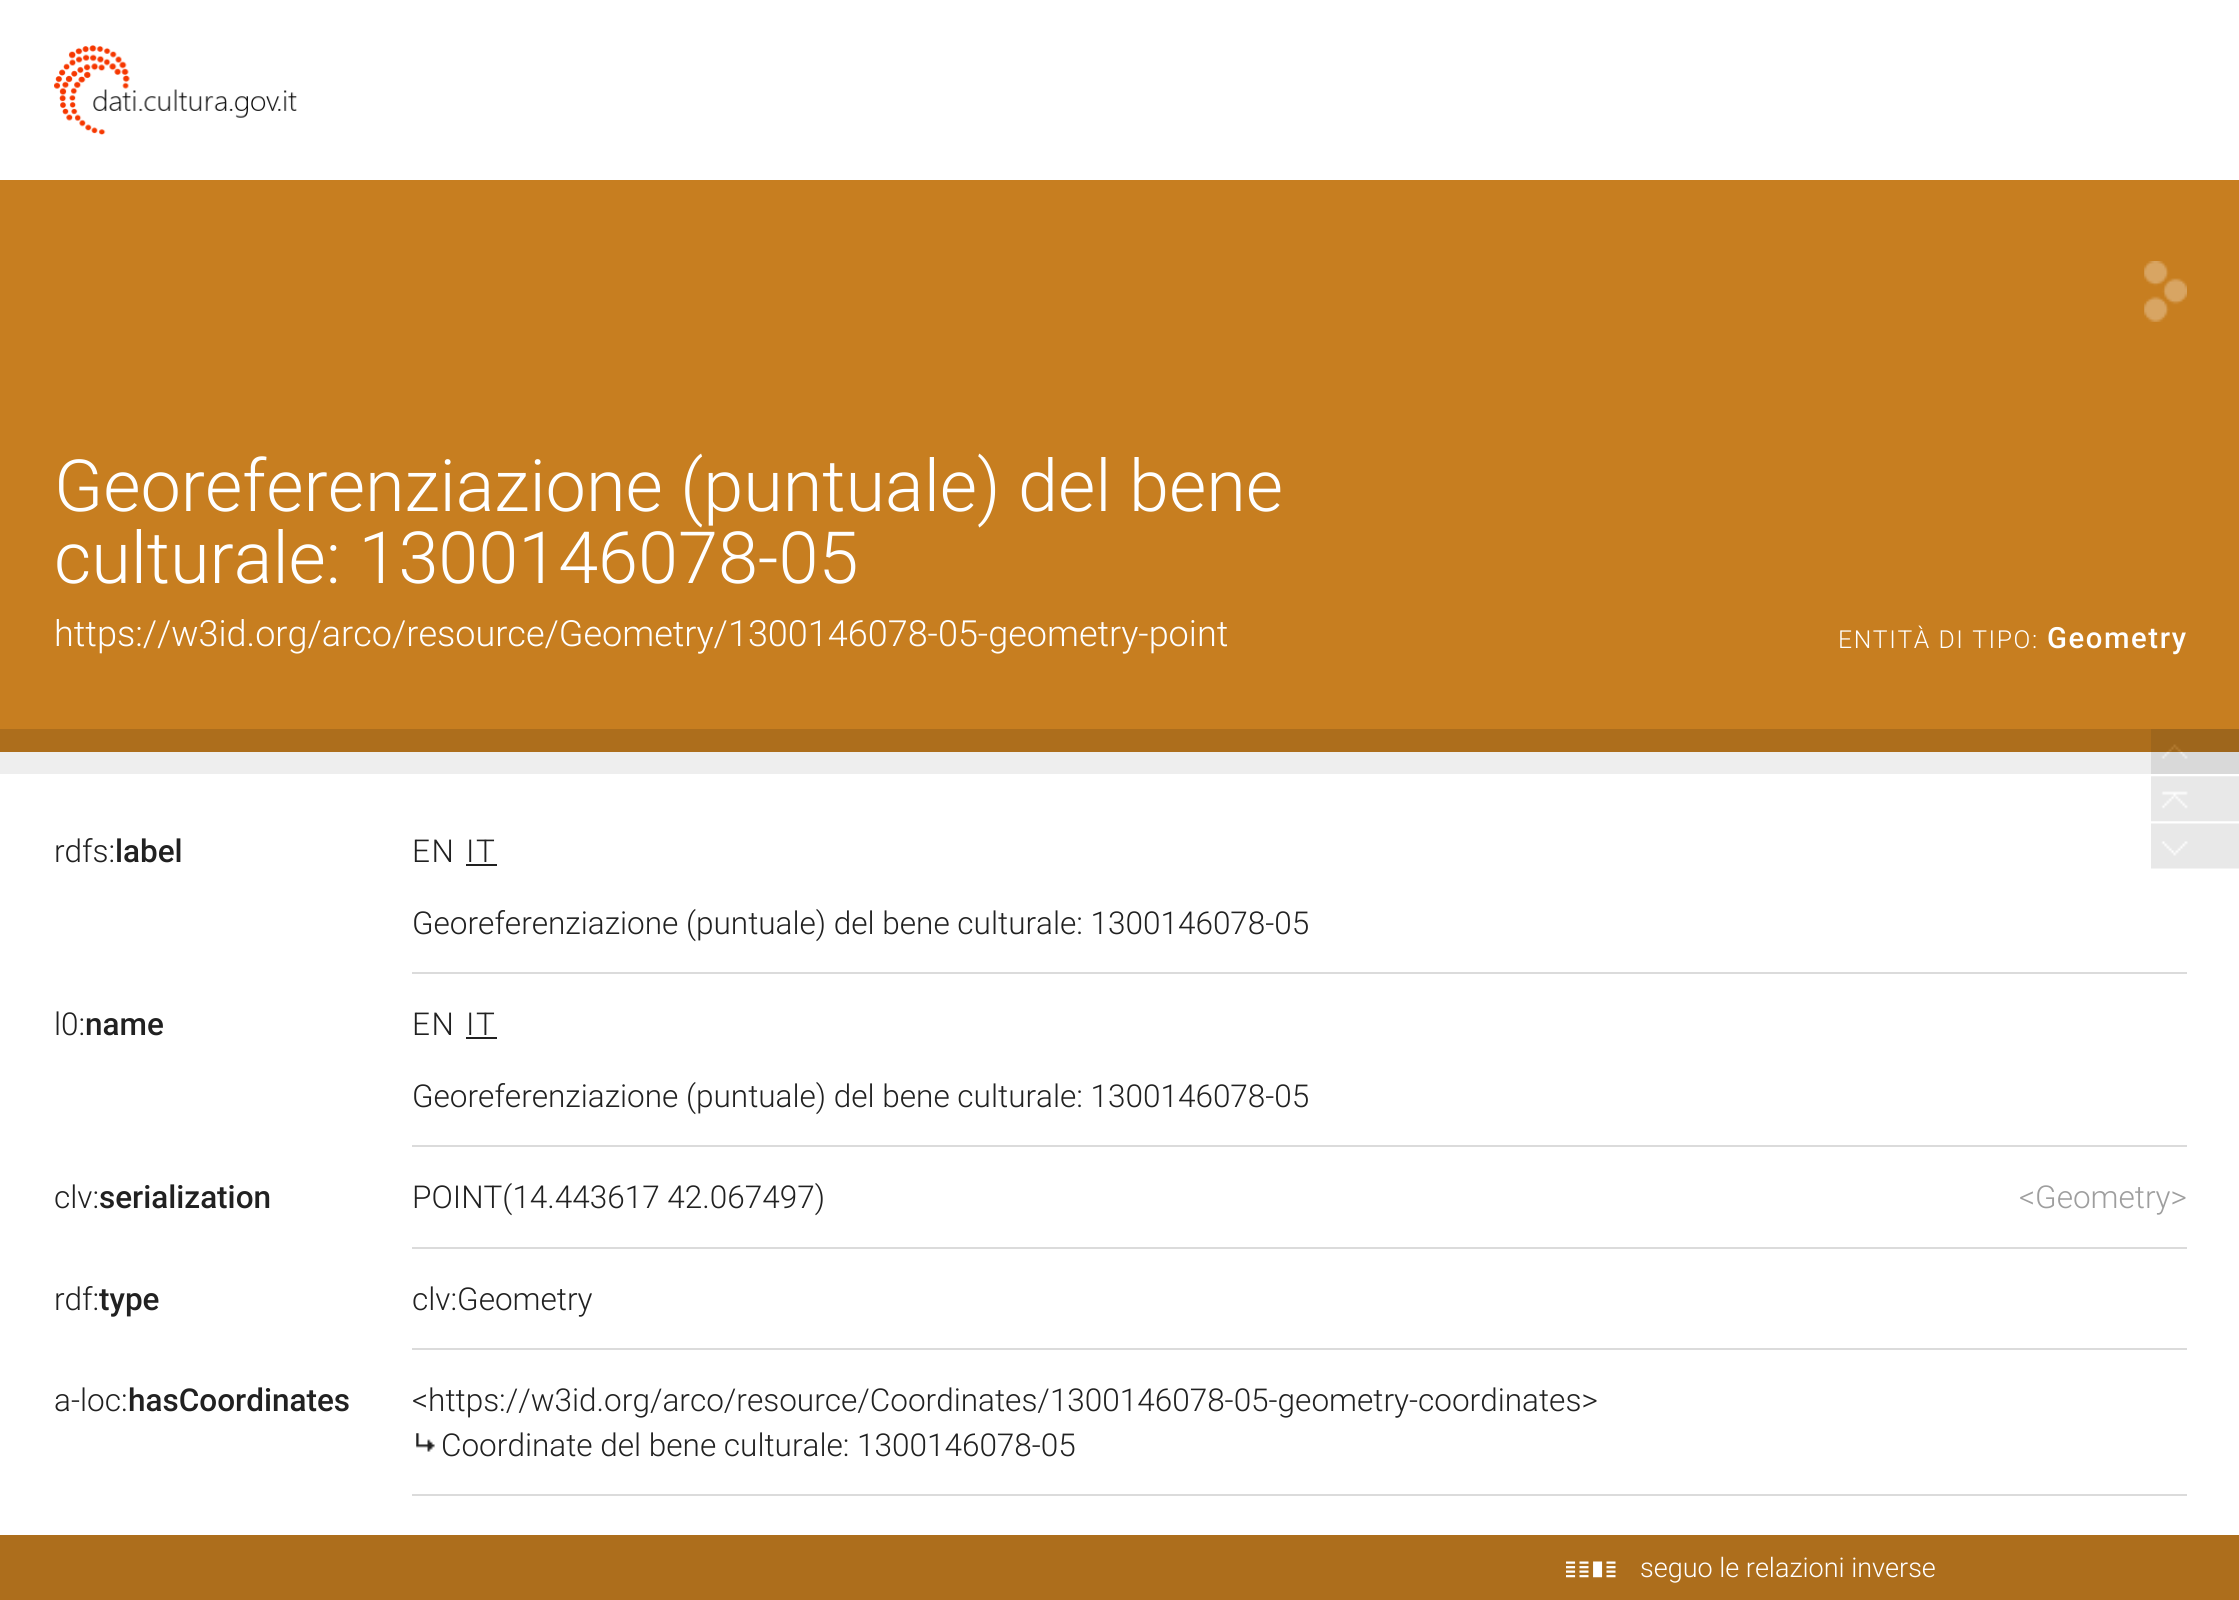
import math
import cairocffi as cairo

surface = cairo.ImageSurface(cairo.FORMAT_RGB24, 2239, 1600)
ctx = cairo.Context(surface)
options = cairo.FontOptions()
options.set_hint_metrics(cairo.HINT_METRICS_OFF)
options.set_hint_style(cairo.HINT_STYLE_NONE)
ctx.set_font_options(options)
ctx.set_miter_limit(4)


def rgb(r, g, b):
    ctx.set_source_rgb(r / 255, g / 255, b / 255)


def face(family, size, italic, bold):
    ctx.select_font_face(family, cairo.FONT_SLANT_ITALIC if italic else cairo.FONT_SLANT_NORMAL, cairo.FONT_WEIGHT_BOLD if bold else cairo.FONT_WEIGHT_NORMAL)
    ctx.set_font_size(size)


def label(x, y, s):
    ctx.move_to(x, y)
    ctx.show_text(s)


def tracked(x, y, s, letter, word):
    ctx.move_to(x, y)
    for ch in s:
        ctx.show_text(ch)
        ctx.rel_move_to(letter + word * (ch == ' '), 0)


def rect(x, y, w, h):
    ctx.rectangle(x, y, w, h)
    ctx.fill()


def image(path, x, y, w, h):
    ctx.save()
    ctx.set_source_surface(cairo.ImageSurface.create_from_png(path), x, y)
    ctx.rectangle(x, y, w, h)
    ctx.fill()
    ctx.restore()


rgb(255, 255, 255)
ctx.paint()
image('image0.png', 54, 45, 243, 90)
rgb(199, 126, 32)
rect(0, 180, 2239, 549)
face('Roboto Light', 72, 0, 0)
rgb(255, 255, 255)
label(54, 511, 'Georeferenziazione (puntuale) del bene')
label(54, 583, 'culturale: 1300146078-05')
image('image1.png', 2144, 261, 43, 61)
face('Roboto Light', 36, 0, 0)
label(54, 646, 'https://w3id.org/arco/resource/Geometry/1300146078-05-geometry-point')
face('Roboto Light', 24.75, 0, 0)
tracked(1838, 648, 'ENTITÀ DI TIPO:', 1.6, 0)
face('Roboto Medium', 29.25, 0, 0)
tracked(2047, 648, 'Geometry', 1.6, 0)
rgb(173, 110, 28)
rect(0, 729, 2239, 23)
rgb(238, 238, 238)
rect(0, 752, 2239, 22)
face('Roboto Light', 31.5, 0, 0)
rgb(33, 33, 33)
label(54, 862, 'rdfs:')
face('Roboto Medium', 31.5, 0, 0)
label(115, 862, 'label')
rgb(219, 219, 219)
rect(412, 972, 1775, 2)
face('Roboto Light', 31.5, 0, 0)
rgb(33, 33, 33)
tracked(412, 862, 'EN', 1.6, 0)
tracked(466, 862, 'IT', 1.6, 0)
rect(466, 864, 31, 2)
label(412, 934, 'Georeferenziazione (puntuale) del bene culturale: 1300146078-05')
label(54, 1035, 'l0:')
face('Roboto Medium', 31.5, 0, 0)
label(85, 1035, 'name')
rgb(219, 219, 219)
rect(412, 1145, 1775, 2)
face('Roboto Light', 31.5, 0, 0)
rgb(33, 33, 33)
tracked(412, 1035, 'EN', 1.6, 0)
tracked(466, 1035, 'IT', 1.6, 0)
rect(466, 1037, 31, 2)
label(412, 1107, 'Georeferenziazione (puntuale) del bene culturale: 1300146078-05')
label(54, 1208, 'clv:')
face('Roboto Medium', 31.5, 0, 0)
label(99, 1208, 'serialization')
rgb(219, 219, 219)
rect(412, 1247, 1775, 2)
face('Roboto Light', 31.5, 0, 0)
rgb(33, 33, 33)
label(412, 1208, 'POINT(14.443617 42.067497)')
rgb(158, 158, 158)
label(2019, 1208, '<Geometry>')
rgb(33, 33, 33)
label(54, 1310, 'rdf:')
face('Roboto Medium', 31.5, 0, 0)
label(99, 1310, 'type')
rgb(219, 219, 219)
rect(412, 1348, 1775, 2)
face('Roboto Light', 31.5, 0, 0)
rgb(33, 33, 33)
label(412, 1310, 'clv:Geometry')
label(54, 1411, 'a-loc:')
face('Roboto Medium', 31.5, 0, 0)
label(128, 1411, 'hasCoordinates')
rgb(219, 219, 219)
rect(412, 1494, 1775, 2)
face('Roboto Light', 31.5, 0, 0)
rgb(33, 33, 33)
label(412, 1411, '<https://w3id.org/arco/resource/Coordinates/1300146078-05-geometry-coordinates>')
image('image2.png', 416, 1433, 19, 19)
label(441, 1456, 'Coordinate del bene culturale: 1300146078-05')
image('image3.png', 2151, 729, 88, 45)
image('image4.png', 2151, 776, 88, 46)
image('image5.png', 2151, 823, 88, 46)
rgb(173, 110, 28)
rect(0, 1535, 2239, 65)
image('image6.png', 1566, 1561, 50, 17)
face('Roboto Light', 27, 0, 0)
rgb(255, 255, 255)
label(1640, 1577, 'seguo le relazioni inverse')
surface.write_to_png('render.png')
